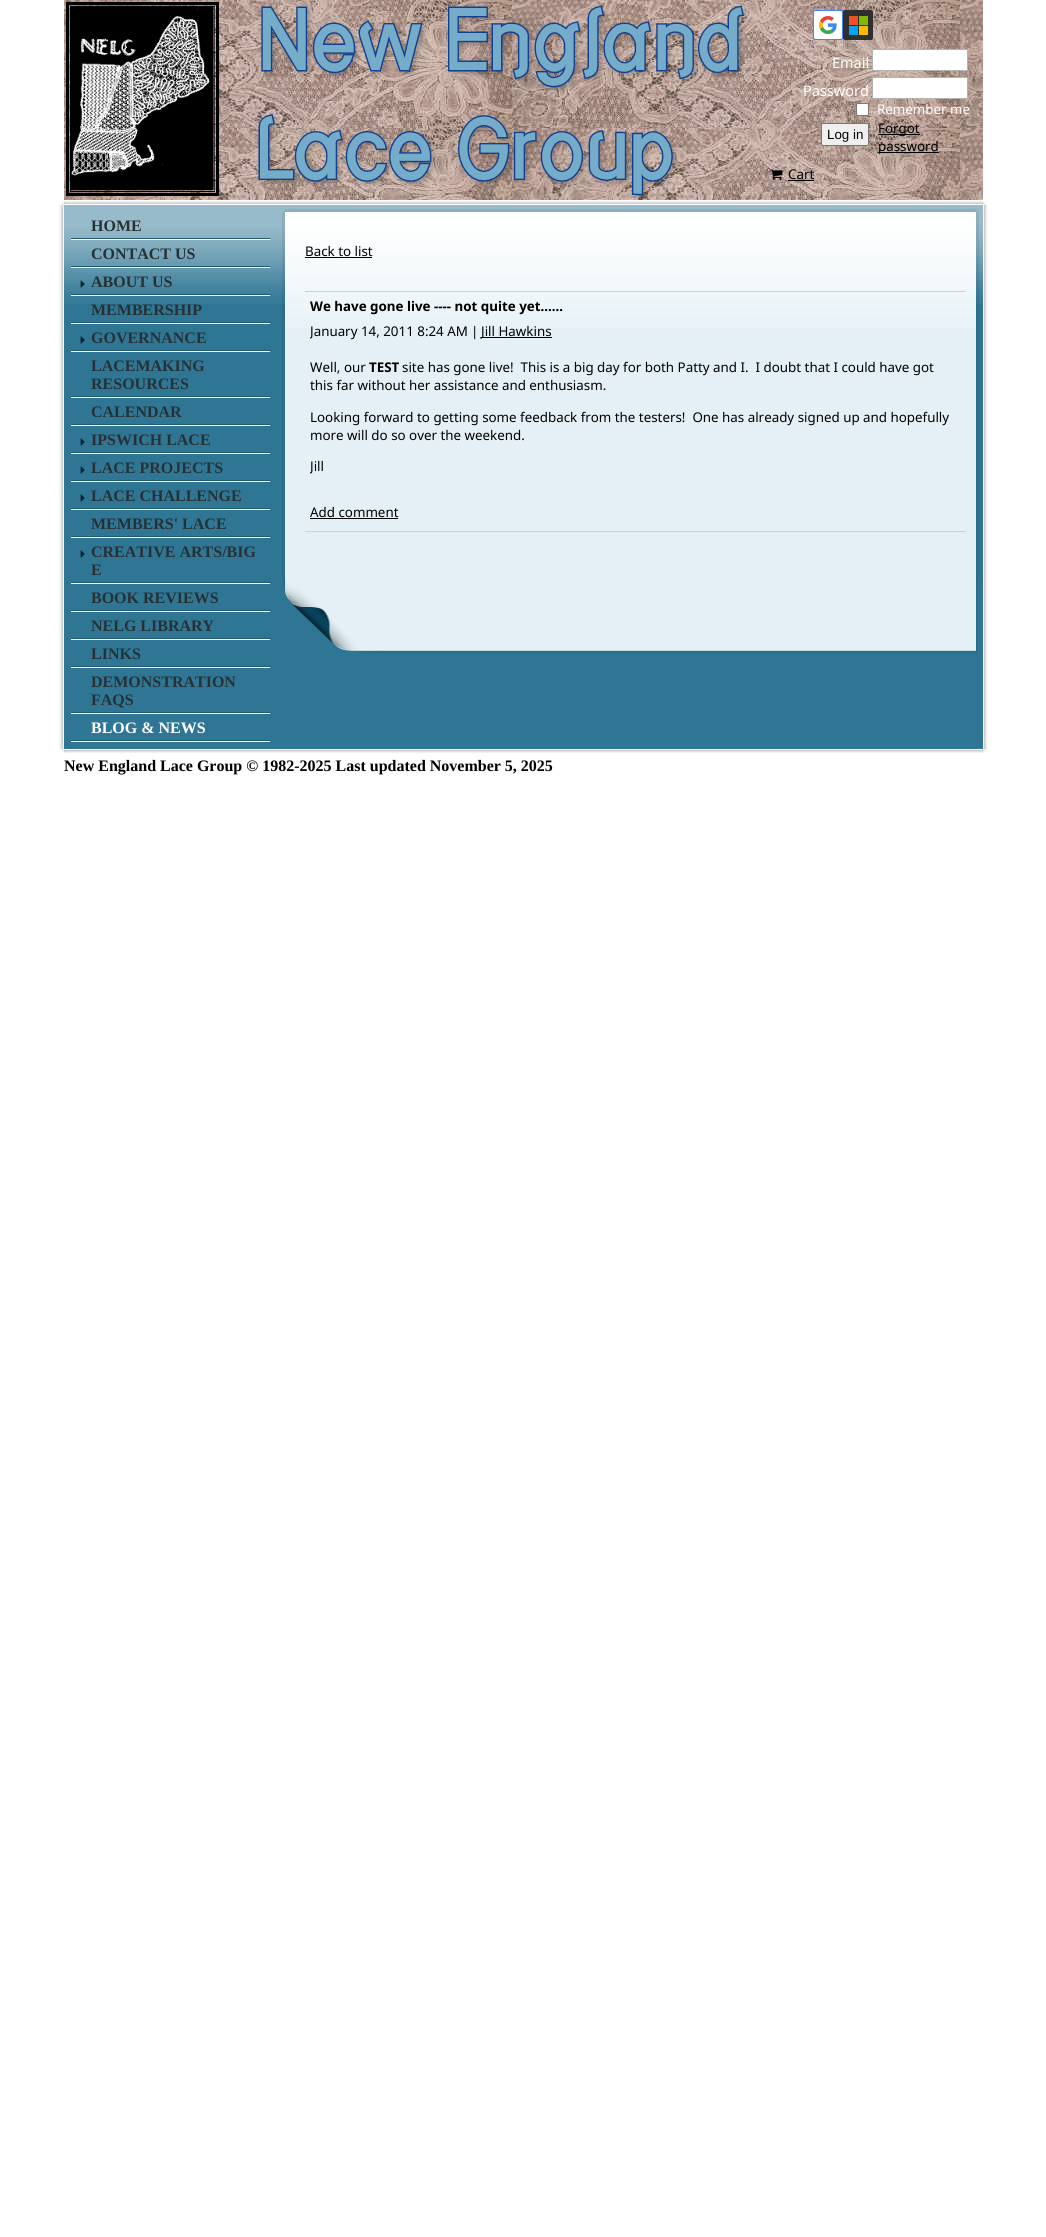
import math
import cairocffi as cairo

surface = cairo.ImageSurface(cairo.FORMAT_RGB24, 1046, 2237)
ctx = cairo.Context(surface)
options = cairo.FontOptions()
options.set_hint_metrics(cairo.HINT_METRICS_OFF)
options.set_hint_style(cairo.HINT_STYLE_NONE)
ctx.set_font_options(options)
ctx.set_miter_limit(4)


def rgb(r, g, b):
    ctx.set_source_rgb(r / 255, g / 255, b / 255)


def face(family, size, italic, bold):
    ctx.select_font_face(family, cairo.FONT_SLANT_ITALIC if italic else cairo.FONT_SLANT_NORMAL, cairo.FONT_WEIGHT_BOLD if bold else cairo.FONT_WEIGHT_NORMAL)
    ctx.set_font_size(size)


def label(x, y, s):
    ctx.move_to(x, y)
    ctx.show_text(s)


def rect(x, y, w, h):
    ctx.rectangle(x, y, w, h)
    ctx.fill()


def rrect(x, y, w, h, r):
    ctx.new_sub_path()
    for i, (u, v) in enumerate([(x + w - r, y + h - r), (x + r, y + h - r), (x + r, y + r), (x + w - r, y + r)]):
        ctx.arc(u, v, r, i * math.pi / 2, (i + 1) * math.pi / 2)
    ctx.close_path()


def image(path, x, y, w, h):
    ctx.save()
    ctx.set_source_surface(cairo.ImageSurface.create_from_png(path), x, y)
    ctx.rectangle(x, y, w, h)
    ctx.fill()
    ctx.restore()


rgb(255, 255, 255)
ctx.paint()
image('image0.png', 64, 0, 919, 200)
image('image1.png', 66, 2, 153, 194)
image('image2.png', 258, 5, 491, 195)
rgb(66, 133, 244)
rrect(813.5, 10.5, 29, 29, 1.5)
ctx.fill_preserve()
ctx.set_line_width(1)
ctx.stroke()
image('image3.png', 814, 11, 28, 28)
rgb(47, 47, 47)
rrect(843.5, 10.5, 29, 29, 1.5)
ctx.fill_preserve()
ctx.stroke()
rgb(242, 80, 34)
rect(849, 16, 9, 9)
rgb(0, 164, 239)
rect(849, 26, 9, 9)
rgb(127, 186, 0)
rect(859, 16, 9, 9)
rgb(255, 185, 0)
rect(859, 26, 9, 9)
face('Noto Sans', 14.5, 0, 0)
rgb(255, 255, 255)
label(832, 68, 'Email')
ctx.rectangle(872.5, 49.5, 95, 21)
ctx.fill_preserve()
rgb(178, 178, 178)
ctx.stroke()
rgb(255, 255, 255)
label(803, 96, 'Password')
ctx.rectangle(872.5, 77.5, 95, 21)
ctx.fill_preserve()
rgb(178, 178, 178)
ctx.stroke()
rgb(255, 255, 255)
rrect(856.5, 103.5, 12, 12, 1.5)
ctx.fill_preserve()
rgb(118, 118, 118)
ctx.stroke()
face('Noto Sans', 13.35, 0, 0)
rgb(255, 255, 255)
label(877, 114, 'Remember me')
rgb(239, 239, 239)
rrect(821.5, 123.5, 47, 22, 1.5)
ctx.fill_preserve()
rgb(118, 118, 118)
ctx.stroke()
face('Liberation Sans', 13.35, 0, 0)
rgb(0, 0, 0)
label(827, 139, 'Log in')
rect(878, 134, 42, 1)
face('Noto Sans', 13.35, 0, 0)
label(878, 133, 'Forgot')
rect(878, 152, 61, 1)
label(878, 151, 'password')
image('image4.png', 770, 169, 13, 11)
label(788, 179, 'Cart')
rect(788, 180, 26, 1)
image('image5.png', 61, 201, 4, 4)
image('image6.png', 983, 201, 4, 4)
image('image7.png', 64, 201, 919, 4)
image('image8.png', 59, 205, 5, 544)
image('image9.png', 983, 205, 5, 544)
rgb(47, 118, 148)
rect(64, 304, 919, 445)
image('image10.png', 64, 205, 919, 99)
image('image11.png', 284, 210, 2, 2)
image('image12.png', 976, 210, 2, 2)
ctx.set_source_rgba(0, 0, 0, 0.07)
rect(285, 209, 691, 3)
image('image13.png', 71, 238, 199, 2)
face('Liberation Serif', 16, 0, 1)
rgb(39, 49, 53)
label(91, 231, 'HOME')
image('image13.png', 71, 266, 199, 2)
label(91, 259, 'CONTACT US')
image('image13.png', 71, 294, 199, 2)
image('image14.png', 80, 280, 5, 8)
label(91, 287, 'ABOUT US')
image('image13.png', 71, 322, 199, 2)
label(91, 315, 'MEMBERSHIP')
image('image13.png', 71, 350, 199, 2)
image('image15.png', 80, 336, 5, 8)
label(91, 343, 'GOVERNANCE')
image('image13.png', 71, 396, 199, 2)
label(91, 371, 'LACEMAKING')
label(91, 389, 'RESOURCES')
image('image13.png', 71, 424, 199, 2)
label(91, 417, 'CALENDAR')
image('image13.png', 71, 452, 199, 2)
image('image15.png', 80, 438, 5, 8)
label(91, 445, 'IPSWICH LACE')
image('image13.png', 71, 480, 199, 2)
image('image15.png', 80, 466, 5, 8)
label(91, 473, 'LACE PROJECTS')
image('image13.png', 71, 508, 199, 2)
image('image15.png', 80, 494, 5, 8)
label(91, 501, 'LACE CHALLENGE')
image('image13.png', 71, 536, 199, 2)
label(91, 529, 'MEMBERS\' LACE')
image('image13.png', 71, 582, 199, 2)
image('image15.png', 80, 550, 5, 8)
label(91, 557, 'CREATIVE ARTS/BIG')
label(91, 575, 'E')
image('image13.png', 71, 610, 199, 2)
label(91, 603, 'BOOK REVIEWS')
image('image13.png', 71, 638, 199, 2)
label(91, 631, 'NELG LIBRARY')
image('image13.png', 71, 666, 199, 2)
label(91, 659, 'LINKS')
image('image13.png', 71, 712, 199, 2)
label(91, 687, 'DEMONSTRATION')
label(91, 705, 'FAQS')
image('image13.png', 71, 740, 199, 2)
rgb(255, 255, 255)
label(91, 733, 'BLOG & NEWS')
rgb(228, 240, 245)
rect(285, 215, 691, 436)
image('image16.png', 281, 579, 101, 78)
image('image17.png', 976, 579, 4, 78)
image('image18.png', 381, 650, 595, 7)
ctx.set_source_rgba(0, 0, 0, 0.07)
rect(282, 212, 3, 367)
rect(976, 212, 3, 367)
image('image19.png', 285, 212, 691, 117)
face('Noto Sans', 13.35, 0, 0)
rgb(0, 0, 0)
label(305, 256, 'Back to list')
rect(305, 257, 67, 1)
rgb(212, 208, 200)
rect(305, 291, 661, 1)
rect(305, 531, 661, 1)
face('Noto Sans', 13.35, 0, 1)
rgb(0, 0, 0)
label(310, 311, 'We have gone live ---- not quite yet......')
ctx.save()
ctx.rectangle(310, 322, 242, 23)
ctx.clip()
face('Noto Sans', 13.35, 0, 0)
label(310, 336, 'January 14, 2011 8:24 AM')
ctx.restore()
face('Noto Sans', 13.35, 0, 0)
label(471, 336, '|')
rect(481, 337, 71, 1)
label(481, 336, 'Jill Hawkins')
label(310, 372, 'Well, our')
face('Noto Sans', 13.35, 0, 1)
label(369, 372, 'TEST')
face('Noto Sans', 13.35, 0, 0)
label(402, 372, 'site has gone live!  This is a big day for both Patty and I.  I doubt that I could have got')
label(310, 390, 'this far without her assistance and enthusiasm.')
label(310, 422, 'Looking forward to getting some feedback from the testers!  One has already signed up and hopefully')
label(310, 440, 'more will do so over the weekend.')
ctx.save()
ctx.rectangle(310, 345, 651, 148)
ctx.clip()
label(310, 471, 'Jill')
ctx.restore()
label(310, 517, 'Add comment')
rect(310, 518, 88, 1)
image('image20.png', 61, 749, 4, 4)
image('image21.png', 983, 749, 4, 4)
image('image22.png', 64, 749, 919, 4)
face('Liberation Serif', 16, 0, 1)
label(64, 771, 'New England Lace Group © 1982-2025 Last updated November 5, 2025')
surface.write_to_png('render.png')
